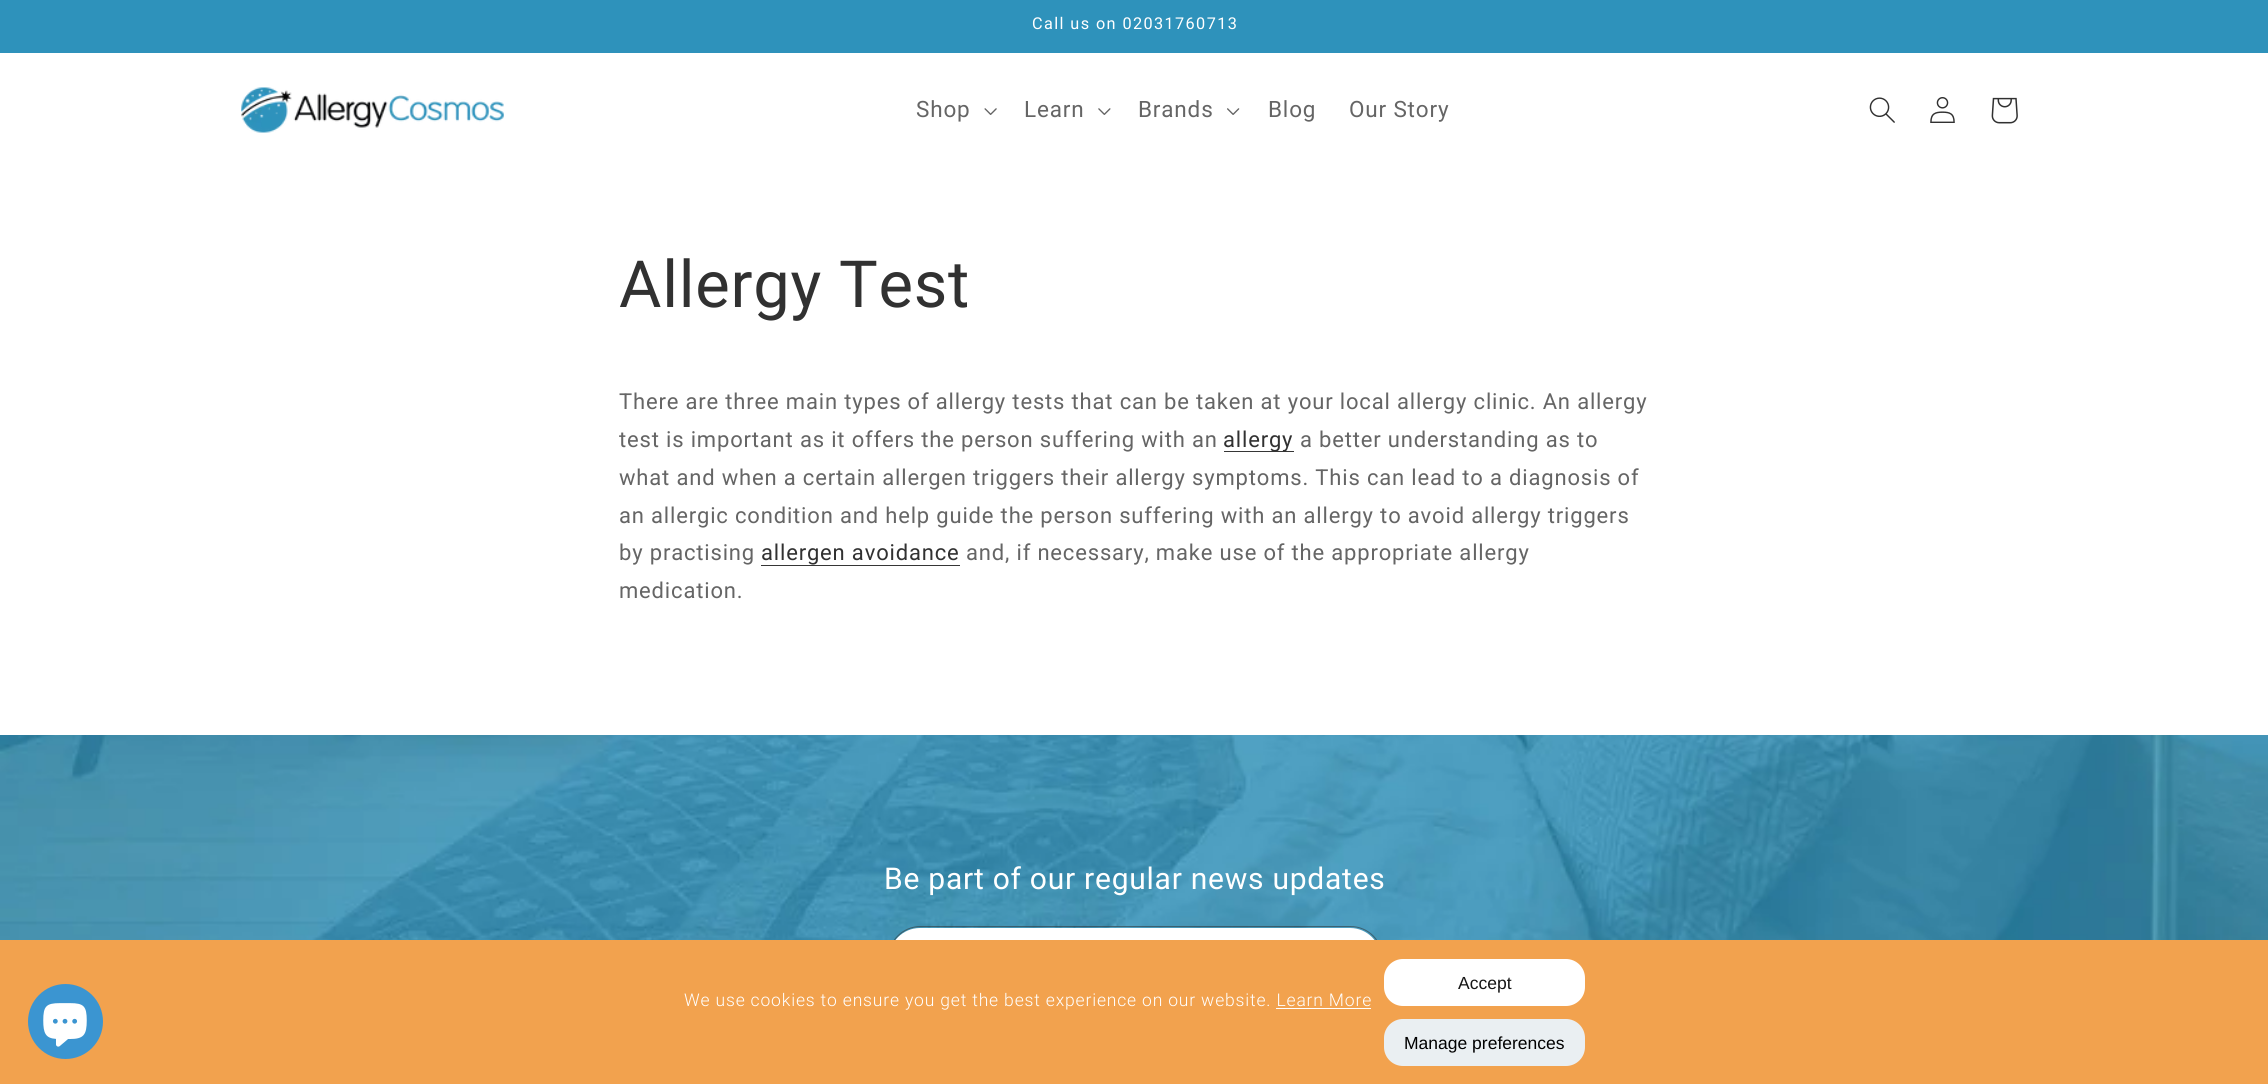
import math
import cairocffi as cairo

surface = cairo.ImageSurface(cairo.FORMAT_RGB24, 2268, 1084)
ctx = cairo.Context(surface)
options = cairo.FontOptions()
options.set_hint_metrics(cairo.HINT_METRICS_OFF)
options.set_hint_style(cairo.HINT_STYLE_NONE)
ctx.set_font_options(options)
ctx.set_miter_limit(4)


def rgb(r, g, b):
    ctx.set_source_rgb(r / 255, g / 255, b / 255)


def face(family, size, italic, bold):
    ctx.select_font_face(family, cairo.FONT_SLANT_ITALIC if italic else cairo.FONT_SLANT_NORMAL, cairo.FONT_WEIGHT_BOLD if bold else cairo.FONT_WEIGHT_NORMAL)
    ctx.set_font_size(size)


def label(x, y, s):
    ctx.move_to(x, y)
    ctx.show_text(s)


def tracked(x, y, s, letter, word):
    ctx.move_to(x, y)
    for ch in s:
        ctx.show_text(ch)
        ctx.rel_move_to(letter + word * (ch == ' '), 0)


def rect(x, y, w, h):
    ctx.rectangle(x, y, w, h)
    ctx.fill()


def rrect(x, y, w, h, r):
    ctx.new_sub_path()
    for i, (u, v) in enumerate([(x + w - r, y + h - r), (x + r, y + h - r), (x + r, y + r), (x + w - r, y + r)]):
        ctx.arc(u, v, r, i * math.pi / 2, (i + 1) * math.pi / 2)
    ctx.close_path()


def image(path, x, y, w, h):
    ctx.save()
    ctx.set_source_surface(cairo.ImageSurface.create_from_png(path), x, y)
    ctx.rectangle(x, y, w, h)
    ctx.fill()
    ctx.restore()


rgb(255, 255, 255)
ctx.paint()
rgb(46, 146, 187)
rect(0, 0, 2268, 53)
face('Roboto', 16.25, 0, 0)
rgb(255, 255, 255)
tracked(1032, 29, 'Call us on 02031760713', 1.4, 0)
image('image0.png', 241, 87, 263, 46)
face('Roboto', 22.5, 0, 0)
rgb(101, 101, 101)
tracked(916, 117, 'Shop', 0.83, 0)
image('image1.png', 984, 108, 13, 7)
tracked(1024, 117, 'Learn', 0.83, 0)
image('image2.png', 1098, 108, 13, 7)
tracked(1138, 117, 'Brands', 0.83, 0)
image('image3.png', 1227, 108, 13, 7)
tracked(1268, 117, 'Blog', 0.83, 0)
tracked(1349, 117, 'Our Story', 0.83, 0)
image('image4.png', 1869, 97, 26, 26)
image('image5.png', 1930, 97, 25, 26)
image('image6.png', 1991, 97, 27, 27)
face('Roboto', 65, 0, 0)
rgb(49, 49, 49)
tracked(619, 307, 'Allergy Test', 0.75, 0)
face('Roboto', 22, 0, 0)
rgb(101, 101, 101)
tracked(619, 409, 'There are three main types of allergy tests that can be taken at your local allergy clinic. An allergy', 0.83, 0)
tracked(619, 447, 'test is important as it offers the person suffering with an', 0.83, 0)
rgb(54, 54, 54)
rect(1224, 451, 70, 1)
rgb(49, 49, 49)
tracked(1223, 447, 'allergy', 0.83, 0)
rgb(101, 101, 101)
tracked(1300, 447, 'a better understanding as to', 0.83, 0)
tracked(619, 485, 'what and when a certain allergen triggers their allergy symptoms. This can lead to a diagnosis of', 0.83, 0)
tracked(619, 523, 'an allergic condition and help guide the person suffering with an allergy to avoid allergy triggers', 0.83, 0)
tracked(619, 560, 'by practising', 0.83, 0)
rgb(49, 49, 49)
tracked(761, 560, 'allergen avoidance', 0.83, 0)
rgb(54, 54, 54)
rect(761, 565, 199, 1)
rgb(101, 101, 101)
tracked(966, 560, 'and, if necessary, make use of the appropriate allergy', 0.83, 0)
tracked(619, 598, 'medication.', 0.83, 0)
image('image7.png', 0, 735, 2268, 205)
face('Roboto', 30, 0, 0)
rgb(255, 255, 255)
tracked(884, 889, 'Be part of our regular news updates', 0.75, 0)
rrect(889, 928, 492, 62, 31)
ctx.fill()
rrect(888.5, 926.5, 494, 64, 32)
ctx.set_source_rgba(0.192, 0.192, 0.192, 0.55)
ctx.set_line_width(1)
ctx.stroke()
rgb(242, 162, 78)
rect(0, 940, 2268, 144)
rgb(59, 149, 209)
ctx.arc(65.5, 1021.5, 37.5, 0, 2 * math.pi)
ctx.fill()
image('image8.png', 43, 1003, 44, 44)
face('Roboto Light', 17.5, 0, 0)
rgb(255, 255, 255)
tracked(684, 1006, 'We use cookies to ensure you get the best experience on our website. Learn More', 0.83, 0)
rect(1276, 1008, 95, 1)
rrect(1384, 959, 201, 47, 19)
ctx.fill()
face('Liberation Sans', 17.5, 0, 0)
rgb(22, 22, 22)
label(1458, 989, 'Accept')
rgb(234, 239, 242)
rrect(1384, 1019, 201, 47, 19)
ctx.fill()
rgb(0, 0, 0)
label(1404, 1049, 'Manage preferences')
surface.write_to_png('render.png')
